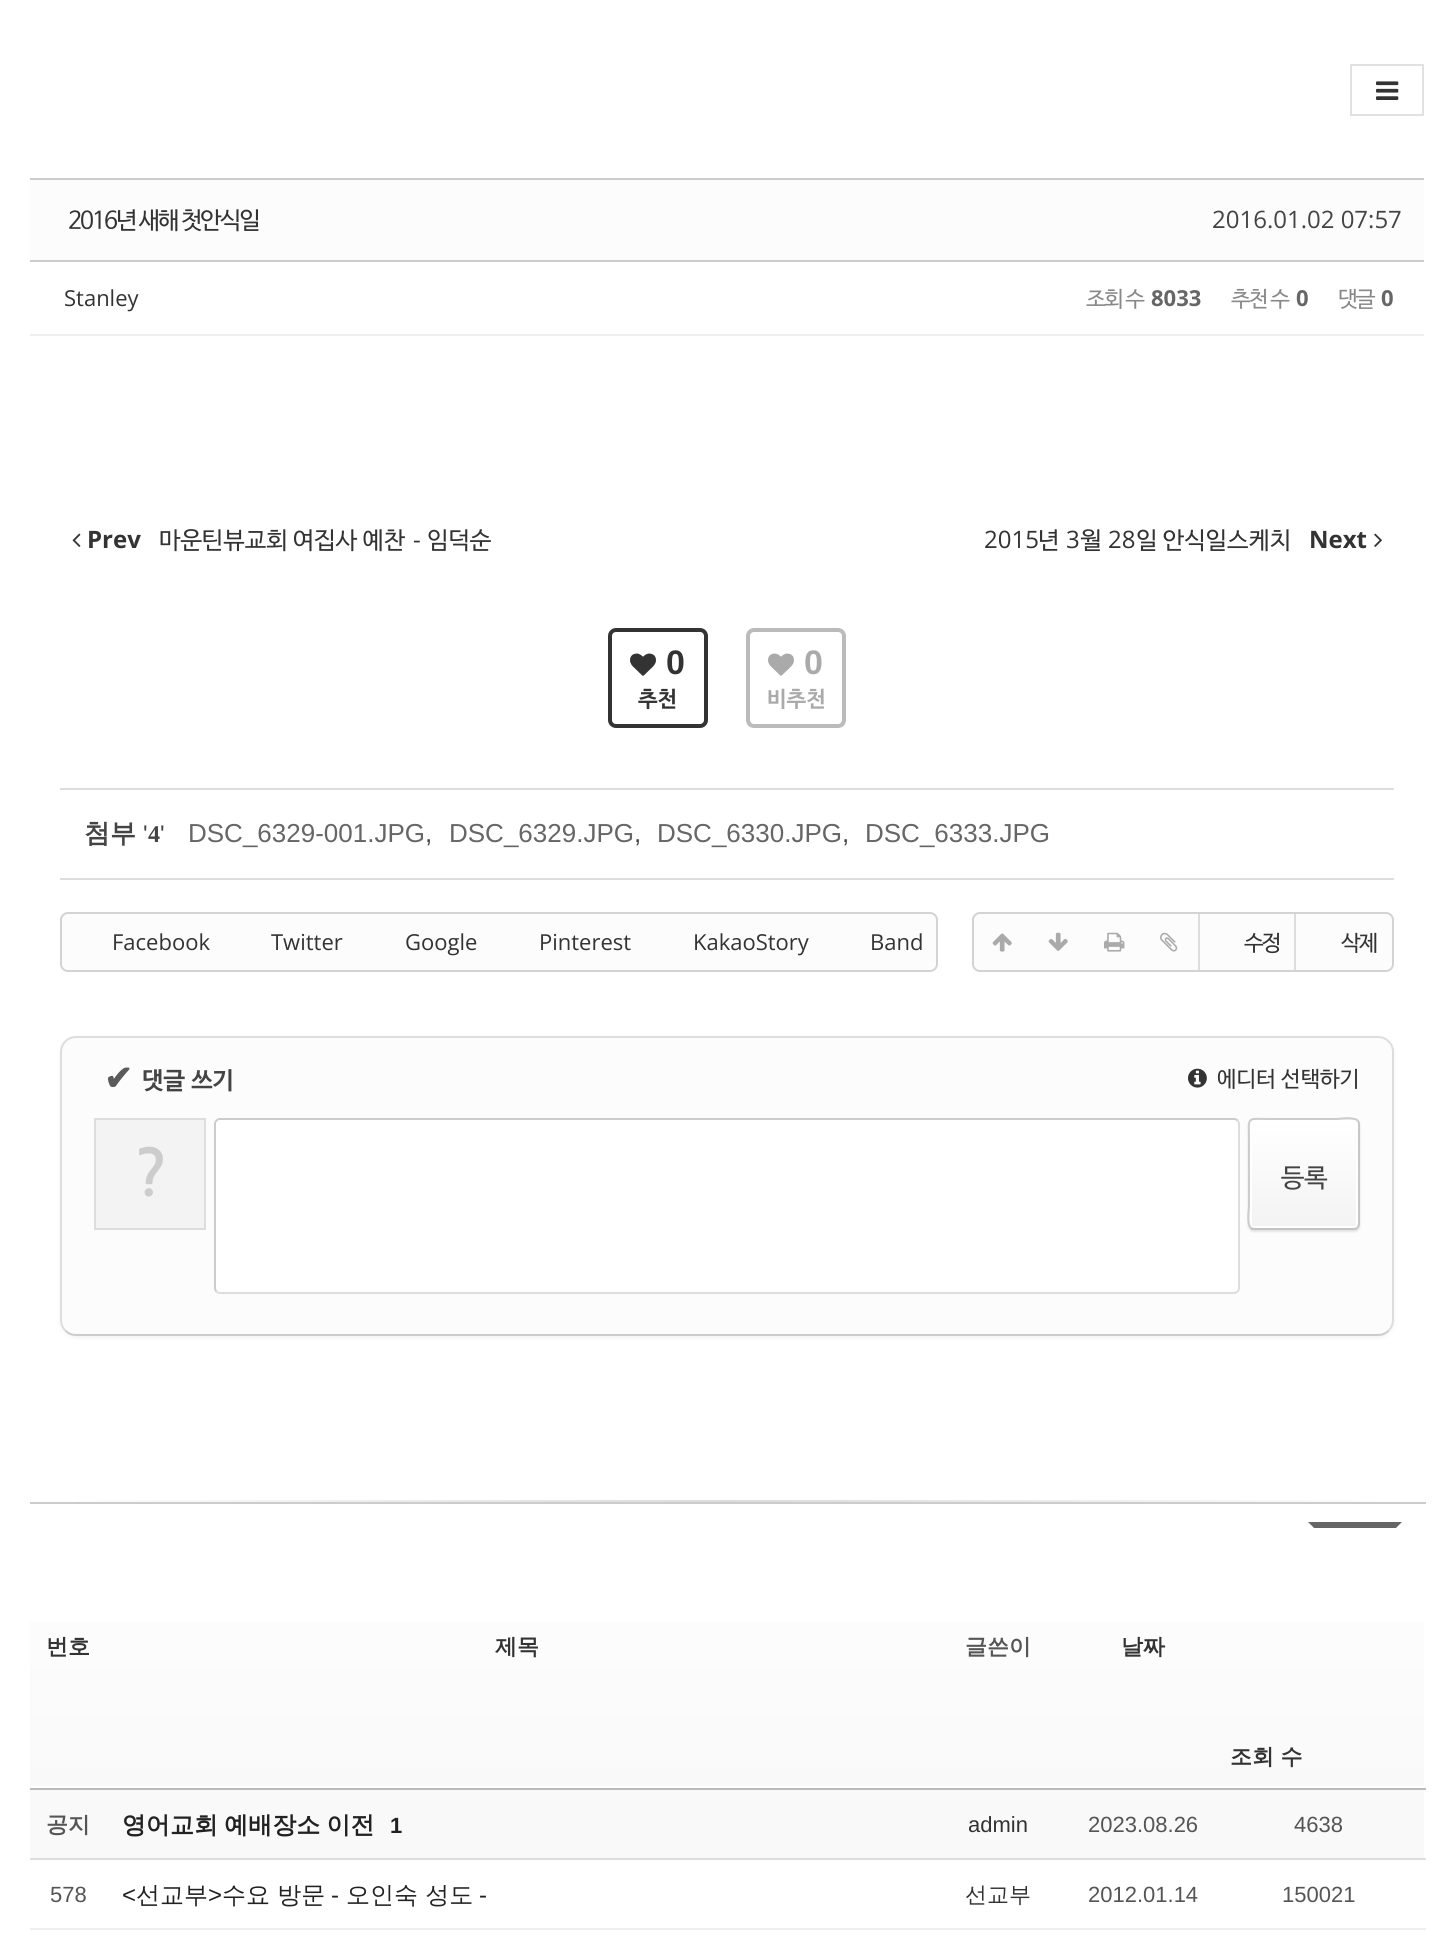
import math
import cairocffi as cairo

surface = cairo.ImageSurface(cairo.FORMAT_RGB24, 1453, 1953)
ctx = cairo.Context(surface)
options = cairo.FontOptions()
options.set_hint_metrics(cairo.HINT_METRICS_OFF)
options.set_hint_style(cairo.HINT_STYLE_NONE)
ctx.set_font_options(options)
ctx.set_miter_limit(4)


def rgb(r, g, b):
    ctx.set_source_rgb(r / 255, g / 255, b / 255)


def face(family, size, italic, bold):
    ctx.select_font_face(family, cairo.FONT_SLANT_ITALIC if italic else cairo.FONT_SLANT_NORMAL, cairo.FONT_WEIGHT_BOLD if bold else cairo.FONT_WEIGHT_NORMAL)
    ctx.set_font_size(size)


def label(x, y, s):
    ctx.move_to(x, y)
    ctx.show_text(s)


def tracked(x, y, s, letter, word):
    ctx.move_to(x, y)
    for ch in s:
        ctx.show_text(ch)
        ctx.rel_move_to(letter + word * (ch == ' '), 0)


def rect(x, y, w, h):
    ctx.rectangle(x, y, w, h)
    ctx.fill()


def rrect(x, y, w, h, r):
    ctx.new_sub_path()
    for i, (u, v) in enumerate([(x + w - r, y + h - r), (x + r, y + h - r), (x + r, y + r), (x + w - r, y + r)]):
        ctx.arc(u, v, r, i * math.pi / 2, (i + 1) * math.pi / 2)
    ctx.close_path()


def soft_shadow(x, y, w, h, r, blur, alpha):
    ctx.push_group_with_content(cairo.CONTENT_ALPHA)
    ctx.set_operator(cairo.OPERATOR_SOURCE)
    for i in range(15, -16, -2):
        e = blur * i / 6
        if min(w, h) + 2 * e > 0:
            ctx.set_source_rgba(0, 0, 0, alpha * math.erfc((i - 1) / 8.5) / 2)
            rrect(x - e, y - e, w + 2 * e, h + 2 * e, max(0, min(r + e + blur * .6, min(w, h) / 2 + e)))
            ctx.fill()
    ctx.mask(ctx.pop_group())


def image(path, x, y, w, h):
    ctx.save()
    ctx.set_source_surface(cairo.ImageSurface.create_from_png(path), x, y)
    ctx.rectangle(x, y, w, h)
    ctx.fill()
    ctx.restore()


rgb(255, 255, 255)
ctx.paint()
ctx.rectangle(1351, 65, 72, 50)
rgb(225, 225, 225)
ctx.stroke()
image('image0.png', 1376, 81, 23, 19)
rgb(252, 252, 252)
rect(30, 180, 1394, 80)
rgb(204, 204, 204)
rect(30, 178, 1394, 2)
rect(30, 260, 1394, 2)
face('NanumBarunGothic', 24, 0, 0)
rgb(51, 51, 51)
tracked(68, 228, '2016년 새해 첫안식일', -2, 0)
face('Open Sans', 24, 0, 0)
rgb(68, 68, 68)
label(1212, 228, '2016.01.02 07:57')
rgb(238, 238, 238)
rect(30, 334, 1394, 2)
face('Open Sans', 22, 0, 0)
rgb(51, 51, 51)
label(64, 306, 'Stanley')
face('NanumBarunGothic', 22, 0, 0)
rgb(136, 136, 136)
tracked(1086, 306, '조회 수', -2, 1)
face('Open Sans', 22, 0, 1)
rgb(102, 102, 102)
label(1151, 306, '8033')
face('NanumBarunGothic', 22, 0, 0)
rgb(136, 136, 136)
tracked(1231, 306, '추천 수', -2, 1)
face('Open Sans', 22, 0, 1)
rgb(102, 102, 102)
label(1296, 306, '0')
face('NanumBarunGothic', 22, 0, 0)
rgb(136, 136, 136)
tracked(1338, 306, '댓글', -2, 0)
face('Open Sans', 22, 0, 1)
rgb(102, 102, 102)
label(1381, 306, '0')
image('image1.png', 72, 533, 9, 14)
face('Open Sans', 24, 0, 1)
rgb(51, 51, 51)
label(87, 548, 'Prev')
face('NanumBarunGothic', 24, 0, 0)
label(159, 548, '마운틴뷰교회 여집사 예찬')
face('Open Sans', 24, 0, 0)
label(413, 548, '-')
face('NanumBarunGothic', 24, 0, 0)
label(427, 548, '임덕순')
face('Open Sans', 24, 0, 0)
label(984, 548, '2015')
face('NanumBarunGothic', 24, 0, 0)
label(1038, 548, '년')
face('Open Sans', 24, 0, 0)
label(1066, 548, '3')
face('NanumBarunGothic', 24, 0, 0)
label(1080, 548, '월')
face('Open Sans', 24, 0, 0)
label(1108, 548, '28')
face('NanumBarunGothic', 24, 0, 0)
label(1136, 548, '일 안식일스케치')
face('Open Sans', 24, 0, 1)
label(1309, 548, 'Next')
image('image2.png', 1374, 533, 8, 14)
rrect(610, 630, 96, 96, 6)
ctx.set_line_width(4)
ctx.stroke()
image('image3.png', 630, 653, 26, 23)
face('Liberation Sans', 34, 0, 1)
label(666, 674, '0')
face('NanumBarunGothic', 22, 0, 1)
label(638, 706, '추천')
rrect(748, 630, 96, 96, 6)
rgb(187, 187, 187)
ctx.stroke()
image('image4.png', 768, 653, 26, 23)
face('Liberation Sans', 34, 0, 1)
rgb(170, 170, 170)
label(804, 674, '0')
face('NanumBarunGothic', 22, 0, 1)
label(767, 706, '비추천')
rgb(221, 221, 221)
rect(60, 788, 1334, 2)
face('WenQuanYi Zen Hei', 26, 0, 1)
rgb(68, 68, 68)
label(84, 842, '첨부')
face('Liberation Sans', 24, 0, 0)
label(143, 842, '\'')
face('Liberation Serif', 24, 0, 1)
label(148, 842, '4')
face('Liberation Sans', 24, 0, 0)
label(160, 842, '\'')
face('Liberation Sans', 26, 0, 0)
rgb(102, 102, 102)
label(188, 842, 'DSC_6329-001.JPG')
rgb(68, 68, 68)
label(425, 842, ',')
rgb(102, 102, 102)
label(449, 842, 'DSC_6329.JPG')
rgb(68, 68, 68)
label(634, 842, ',')
rgb(102, 102, 102)
label(657, 842, 'DSC_6330.JPG')
rgb(68, 68, 68)
label(842, 842, ',')
rgb(102, 102, 102)
label(865, 842, 'DSC_6333.JPG')
rgb(221, 221, 221)
rect(60, 878, 1334, 2)
rgb(252, 252, 252)
rrect(61, 913, 876, 58, 7)
ctx.fill_preserve()
rgb(211, 211, 211)
ctx.set_line_width(2)
ctx.stroke()
face('Open Sans', 22, 0, 0)
rgb(51, 51, 51)
label(112, 950, 'Facebook')
label(271, 950, 'Twitter')
label(405, 950, 'Google')
label(539, 950, 'Pinterest')
label(693, 950, 'KakaoStory')
label(870, 950, 'Band')
rgb(252, 252, 252)
rrect(973, 913, 420, 58, 7)
ctx.fill_preserve()
rgb(211, 211, 211)
ctx.stroke()
image('image5.png', 992, 933, 20, 19)
image('image6.png', 1048, 932, 20, 19)
image('image7.png', 1104, 932, 21, 20)
image('image8.png', 1160, 932, 18, 20)
rgb(221, 221, 221)
rect(1198, 914, 2, 56)
face('NanumBarunGothic', 22, 0, 0)
rgb(51, 51, 51)
tracked(1244, 950, '수정', -2, 0)
rgb(221, 221, 221)
rect(1294, 914, 2, 56)
rgb(51, 51, 51)
tracked(1341, 950, '삭제', -2, 0)
rgb(0, 0, 0)
soft_shadow(62, 1040, 1330, 296, 14, 3, 0.1)
rgb(252, 252, 252)
rrect(60, 1036, 1334, 300, 16)
ctx.fill()
ctx.new_path()
ctx.move_to(1388.5, 1330.5)
ctx.curve_to(1386, 1333.5, 1382, 1335, 1378, 1335)
ctx.line_to(76, 1335)
ctx.curve_to(72, 1335, 68, 1333.5, 65.5, 1330.5)
rgb(204, 204, 204)
ctx.stroke()
ctx.new_path()
ctx.move_to(65.5, 1330.5)
ctx.curve_to(62.5, 1328, 61, 1324, 61, 1320)
ctx.line_to(61, 1052)
ctx.curve_to(61, 1048, 62.5, 1044, 65.5, 1041.5)
ctx.curve_to(68, 1038.5, 72, 1037, 76, 1037)
ctx.line_to(1378, 1037)
ctx.curve_to(1382, 1037, 1386, 1038.5, 1388.5, 1041.5)
ctx.curve_to(1391.5, 1044, 1393, 1048, 1393, 1052)
ctx.line_to(1393, 1320)
ctx.curve_to(1393, 1324, 1391.5, 1328, 1388.5, 1330.5)
rgb(221, 221, 221)
ctx.stroke()
face('DejaVu Sans', 34, 0, 1)
rgb(91, 91, 91)
label(104, 1090, '✔')
face('NanumBarunGothic', 24, 0, 1)
rgb(68, 68, 68)
tracked(142, 1088, '댓글 쓰기', 0, 1)
image('image9.png', 1188, 1068, 19, 20)
face('NanumBarunGothic', 22, 0, 0)
rgb(51, 51, 51)
label(1217, 1086, '에디터 선택하기')
rgb(243, 243, 243)
ctx.rectangle(95, 1119, 110, 110)
ctx.fill_preserve()
rgb(221, 221, 221)
ctx.stroke()
face('NanumGothic', 64, 0, 1)
rgb(204, 204, 204)
label(133, 1196, '?')
rgb(255, 255, 255)
rrect(214, 1118, 1026, 176, 6)
ctx.fill()
ctx.new_path()
ctx.move_to(1237.5, 1120.5)
ctx.curve_to(1238.5, 1121.5, 1239, 1122.5, 1239, 1124)
ctx.line_to(1239, 1288)
ctx.curve_to(1239, 1289.5, 1238.5, 1290.5, 1237.5, 1291.5)
ctx.curve_to(1236.5, 1292.5, 1235.5, 1293, 1234, 1293)
ctx.line_to(220, 1293)
ctx.curve_to(218.5, 1293, 217.5, 1292.5, 216.5, 1291.5)
rgb(221, 221, 221)
ctx.stroke()
ctx.new_path()
ctx.move_to(216.5, 1291.5)
ctx.curve_to(215.5, 1290.5, 215, 1289.5, 215, 1288)
ctx.line_to(215, 1124)
ctx.curve_to(215, 1122.5, 215.5, 1121.5, 216.5, 1120.5)
ctx.curve_to(217.5, 1119.5, 218.5, 1119, 220, 1119)
ctx.line_to(1234, 1119)
ctx.curve_to(1235.5, 1119, 1236.5, 1119.5, 1237.5, 1120.5)
rgb(204, 204, 204)
ctx.stroke()
rgb(0, 0, 0)
soft_shadow(1248, 1120, 112, 112, 6, 1, 0.1)
ctx.save()
rrect(1248, 1118, 112, 112, 6)
ctx.clip()
gradient = cairo.LinearGradient(1304, 1012, 1304, 1120)
gradient.add_color_stop_rgba(0, 1, 1, 1, 1)
gradient.add_color_stop_rgba(1, 0.953, 0.953, 0.953, 1)
ctx.set_source(gradient)
rect(1248, 1118, 112, 2)
gradient = cairo.LinearGradient(1304, 1120, 1304, 1228)
gradient.add_color_stop_rgba(0, 1, 1, 1, 1)
gradient.add_color_stop_rgba(1, 0.953, 0.953, 0.953, 1)
ctx.set_source(gradient)
rect(1248, 1120, 112, 108)
ctx.restore()
rrect(1251, 1121, 106, 106, 3)
rgb(255, 255, 255)
ctx.stroke()
ctx.new_path()
ctx.move_to(1357.5, 1120.5)
ctx.curve_to(1358.5, 1121.5, 1359, 1122.5, 1359, 1124)
ctx.line_to(1359, 1224)
ctx.curve_to(1359, 1225.5, 1358.5, 1226.5, 1357.5, 1227.5)
rgb(198, 198, 198)
ctx.stroke()
ctx.new_path()
ctx.move_to(1357.5, 1227.5)
ctx.curve_to(1356.5, 1228.5, 1355.5, 1229, 1354, 1229)
ctx.line_to(1254, 1229)
ctx.curve_to(1252.5, 1229, 1251.5, 1228.5, 1250.5, 1227.5)
rgb(195, 195, 195)
ctx.stroke()
ctx.new_path()
ctx.move_to(1250.5, 1227.5)
ctx.curve_to(1246.5, 1223.5, 1249, 1207.5, 1249, 1207.5)
ctx.line_to(1249, 1140.5)
ctx.curve_to(1249, 1115.5, 1245.5, 1119, 1270.5, 1119)
ctx.line_to(1337.5, 1119)
ctx.curve_to(1337.5, 1119, 1353.5, 1116.5, 1357.5, 1120.5)
rgb(204, 204, 204)
ctx.stroke()
face('NanumBarunGothic', 26, 0, 0)
rgb(68, 68, 68)
label(1281, 1186, '등록')
gradient = cairo.LinearGradient(30, 1501, 1424, 1501)
gradient.add_color_stop_rgba(0, 1, 1, 1, 1)
gradient.add_color_stop_rgba(0.5, 0.859, 0.859, 0.859, 1)
gradient.add_color_stop_rgba(1, 1, 1, 1, 1)
ctx.set_source(gradient)
rect(78, 1500, 1298, 2)
gradient = cairo.LinearGradient(727, 1502, 727, 1790)
gradient.add_color_stop_rgba(0, 1, 1, 1, 1)
gradient.add_color_stop_rgba(1, 0.976, 0.976, 0.976, 1)
ctx.set_source(gradient)
rect(30, 1622, 1394, 164)
face('WenQuanYi Zen Hei', 22, 0, 1)
rgb(51, 51, 51)
label(46, 1654, '번호')
label(495, 1654, '제목')
rgb(85, 85, 85)
label(965, 1654, '글쓴이')
rgb(51, 51, 51)
label(1121, 1654, '날짜')
rgb(204, 204, 204)
rect(30, 1502, 1396, 2)
rgb(187, 187, 187)
rect(30, 1788, 1396, 2)
rgb(102, 102, 102)
ctx.new_path()
ctx.move_to(1308, 1522)
ctx.line_to(1402, 1522)
ctx.line_to(1396, 1528)
ctx.line_to(1314, 1528)
ctx.close_path()
ctx.fill()
rgb(51, 51, 51)
label(1230, 1764, '조회 수')
rgb(249, 249, 249)
rect(30, 1790, 1394, 68)
rgb(85, 85, 85)
label(46, 1832, '공지')
face('WenQuanYi Zen Hei', 24, 0, 1)
rgb(34, 34, 34)
tracked(122, 1833, '영어교회 예배장소 이전', 0, -1)
face('Liberation Sans', 22, 0, 1)
label(390, 1833, '1')
face('Liberation Sans', 22, 0, 0)
rgb(51, 51, 51)
label(968, 1832, 'admin')
rgb(85, 85, 85)
label(1088, 1832, '2023.08.26')
rgb(221, 221, 221)
rect(30, 1858, 1396, 2)
rgb(85, 85, 85)
label(1294, 1832, '4638')
label(50, 1902, '578')
face('Liberation Sans', 24, 0, 0)
rgb(34, 34, 34)
label(122, 1903, '<')
face('WenQuanYi Zen Hei Medium', 24, 0, 0)
label(136, 1903, '선교부')
face('Liberation Sans', 24, 0, 0)
label(208, 1903, '>')
face('WenQuanYi Zen Hei Medium', 24, 0, 0)
label(222, 1903, '수요 방문')
face('Liberation Sans', 24, 0, 0)
label(331, 1903, '-')
face('WenQuanYi Zen Hei Medium', 24, 0, 0)
label(346, 1903, '오인숙 성도')
face('Liberation Sans', 24, 0, 0)
label(479, 1903, '-')
face('WenQuanYi Zen Hei Medium', 22, 0, 0)
rgb(51, 51, 51)
label(965, 1902, '선교부')
face('Liberation Sans', 22, 0, 0)
rgb(85, 85, 85)
label(1088, 1902, '2012.01.14')
rgb(238, 238, 238)
rect(30, 1928, 1396, 2)
rgb(85, 85, 85)
label(1282, 1902, '150021')
surface.write_to_png('render.png')
